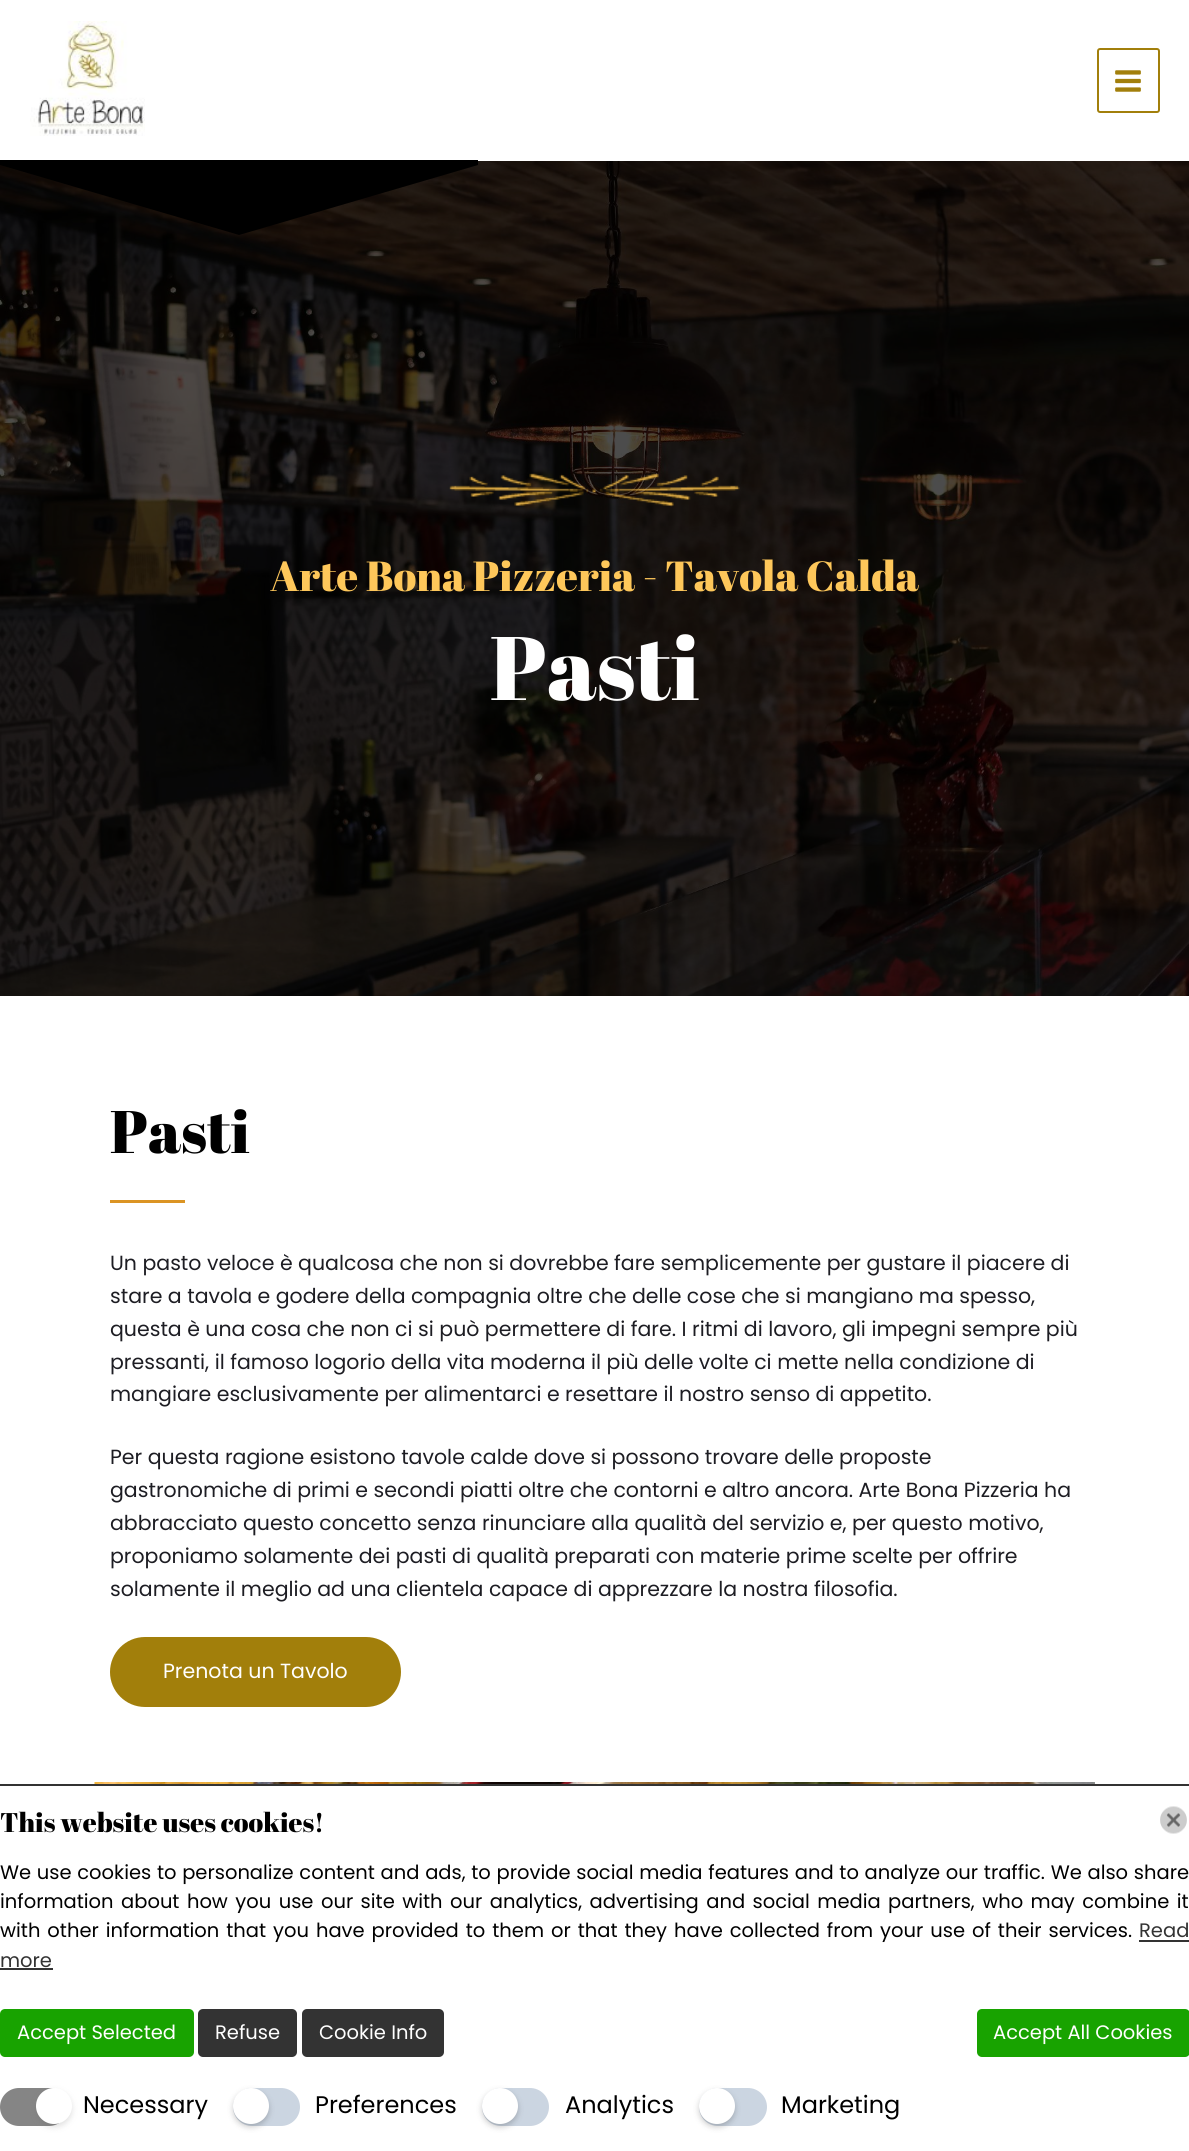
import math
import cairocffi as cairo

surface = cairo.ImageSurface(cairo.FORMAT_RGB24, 1189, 2151)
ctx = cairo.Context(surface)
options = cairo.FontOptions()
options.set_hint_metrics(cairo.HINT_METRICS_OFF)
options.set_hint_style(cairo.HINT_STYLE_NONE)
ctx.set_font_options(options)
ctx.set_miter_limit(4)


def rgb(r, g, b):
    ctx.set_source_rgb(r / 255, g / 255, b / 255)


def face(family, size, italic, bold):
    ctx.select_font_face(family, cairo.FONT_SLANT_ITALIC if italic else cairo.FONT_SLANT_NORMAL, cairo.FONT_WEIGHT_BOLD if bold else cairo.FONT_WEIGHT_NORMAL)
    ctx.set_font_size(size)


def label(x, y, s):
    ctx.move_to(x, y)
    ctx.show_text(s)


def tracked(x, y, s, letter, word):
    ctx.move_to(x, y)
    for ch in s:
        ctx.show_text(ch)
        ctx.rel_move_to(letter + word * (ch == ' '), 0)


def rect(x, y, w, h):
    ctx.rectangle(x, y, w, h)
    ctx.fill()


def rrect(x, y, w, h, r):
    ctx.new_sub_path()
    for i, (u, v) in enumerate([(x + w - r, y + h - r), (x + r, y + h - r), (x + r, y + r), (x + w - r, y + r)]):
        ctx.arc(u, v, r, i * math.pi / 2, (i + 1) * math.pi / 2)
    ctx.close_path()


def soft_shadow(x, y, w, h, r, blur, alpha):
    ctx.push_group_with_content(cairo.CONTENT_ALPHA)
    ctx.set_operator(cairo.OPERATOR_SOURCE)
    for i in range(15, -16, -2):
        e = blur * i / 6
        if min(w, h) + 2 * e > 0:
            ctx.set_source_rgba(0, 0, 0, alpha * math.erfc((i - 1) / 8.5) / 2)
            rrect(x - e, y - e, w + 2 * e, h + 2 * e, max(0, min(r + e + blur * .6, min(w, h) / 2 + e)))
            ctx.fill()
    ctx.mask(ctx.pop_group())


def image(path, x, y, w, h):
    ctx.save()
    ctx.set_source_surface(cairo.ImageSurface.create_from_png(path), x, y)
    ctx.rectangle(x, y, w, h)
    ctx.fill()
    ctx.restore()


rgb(255, 255, 255)
ctx.paint()
rgb(255, 255, 255)
rect(0, 160, 478, 1)
image('image0.png', 30, 21, 115, 115)
rrect(1098, 49, 61, 63, 2)
rgb(162, 127, 11)
ctx.stroke()
image('image1.png', 1115, 70, 26, 22)
image('image2.png', 0, 161, 1189, 835)
rgb(0, 0, 0)
ctx.new_path()
ctx.move_to(239, 235)
ctx.line_to(0, 165)
ctx.line_to(0, 160)
ctx.line_to(478, 160)
ctx.line_to(478, 165)
ctx.close_path()
ctx.fill()
image('image3.png', 449, 473, 291, 34)
face('Abril Fatface', 42, 0, 0)
rgb(254, 199, 90)
label(270, 591, 'Arte Bona Pizzeria - Tavola Calda')
face('Abril Fatface', 90, 0, 0)
rgb(255, 255, 255)
label(490, 700, 'Pasti')
face('Abril Fatface', 60, 0, 0)
rgb(0, 0, 0)
label(110, 1153, 'Pasti')
rgb(219, 148, 35)
rect(110, 1200, 75, 3)
face('Poppins', 20.5, 0, 0)
rgb(29, 29, 35)
label(110, 1270, 'Un pasto veloce è qualcosa che non si dovrebbe fare semplicemente per gustare il piacere di')
label(110, 1303, 'stare a tavola e godere della compagnia oltre che delle cose che si mangiano ma spesso,')
label(110, 1336, 'questa è una cosa che non ci si può permettere di fare. I ritmi di lavoro, gli impegni sempre più')
label(110, 1369, 'pressanti, il famoso logorio della vita moderna il più delle volte ci mette nella condizione di')
label(110, 1401, 'mangiare esclusivamente per alimentarci e resettare il nostro senso di appetito.')
label(110, 1464, 'Per questa ragione esistono tavole calde dove si possono trovare delle proposte')
label(110, 1497, 'gastronomiche di primi e secondi piatti oltre che contorni e altro ancora. Arte Bona Pizzeria ha')
label(110, 1530, 'abbracciato questo concetto senza rinunciare alla qualità del servizio e, per questo motivo,')
label(110, 1563, 'proponiamo solamente dei pasti di qualità preparati con materie prime scelte per offrire')
label(110, 1596, 'solamente il meglio ad una clientela capace di apprezzare la nostra filosofia.')
rgb(162, 127, 11)
rrect(110, 1637, 291, 70, 35)
ctx.fill()
rgb(255, 255, 255)
label(163, 1678, 'Prenota un Tavolo')
image('image4.png', 94, 1782, 1001, 2)
rgb(51, 51, 51)
rect(0, 1784, 1189, 2)
face('Abril Fatface', 27, 0, 0)
rgb(0, 0, 0)
label(0, 1832, 'This website uses cookies!')
image('image5.png', 1160, 1806, 27, 28)
face('Poppins', 19.5, 0, 0)
tracked(0, 1879, 'We use cookies to personalize content and ads, to provide social media features and to analyze our traffic. We also share', 0, 0.5)
tracked(0, 1908, 'information about how you use our site with our analytics, advertising and social media partners, who may combine it', 0, 2.25)
tracked(0, 1937, 'with other information that you have provided to them or that they have collected from your use of their services.', 0, 1.75)
rgb(51, 51, 51)
label(1139, 1937, 'Read')
rect(1139, 1940, 50, 2)
label(0, 1967, 'more')
rect(0, 1968, 53, 2)
rgb(24, 163, 0)
rrect(0, 2009, 194, 48, 5)
ctx.fill()
rgb(255, 255, 255)
label(17, 2039, 'Accept Selected')
rgb(51, 51, 51)
rrect(198, 2009, 99, 48, 5)
ctx.fill()
rgb(255, 255, 255)
label(215, 2039, 'Refuse')
rgb(51, 51, 51)
rrect(302, 2009, 142, 48, 5)
ctx.fill()
rgb(255, 255, 255)
label(319, 2039, 'Cookie Info')
rgb(24, 163, 0)
rrect(977, 2009, 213, 48, 5)
ctx.fill()
rgb(255, 255, 255)
label(993, 2039, 'Accept All Cookies')
rgb(133, 133, 133)
rrect(0, 2088, 68, 38, 19)
ctx.fill()
rgb(102, 102, 102)
soft_shadow(36, 2091, 36, 36, 18, 3, 0.2)
rgb(255, 255, 255)
ctx.arc(54, 2106, 18, 0, 2 * math.pi)
ctx.fill()
face('Poppins', 24, 0, 0)
rgb(0, 0, 0)
label(83, 2113, 'Necessary')
rgb(203, 213, 225)
rrect(233, 2088, 67, 38, 19)
ctx.fill()
rgb(0, 0, 0)
soft_shadow(233, 2091, 36, 36, 18, 3, 0.2)
rgb(255, 255, 255)
ctx.arc(251, 2106, 18, 0, 2 * math.pi)
ctx.fill()
rgb(0, 0, 0)
label(315, 2113, 'Preferences')
rgb(203, 213, 225)
rrect(482, 2088, 67, 38, 19)
ctx.fill()
rgb(0, 0, 0)
soft_shadow(482, 2091, 36, 36, 18, 3, 0.2)
rgb(255, 255, 255)
ctx.arc(500, 2106, 18, 0, 2 * math.pi)
ctx.fill()
rgb(0, 0, 0)
label(565, 2113, 'Analytics')
rgb(203, 213, 225)
rrect(699, 2088, 68, 38, 19)
ctx.fill()
rgb(0, 0, 0)
soft_shadow(699, 2091, 36, 36, 18, 3, 0.2)
rgb(255, 255, 255)
ctx.arc(717, 2106, 18, 0, 2 * math.pi)
ctx.fill()
rgb(0, 0, 0)
label(781, 2113, 'Marketing')
surface.write_to_png('render.png')
